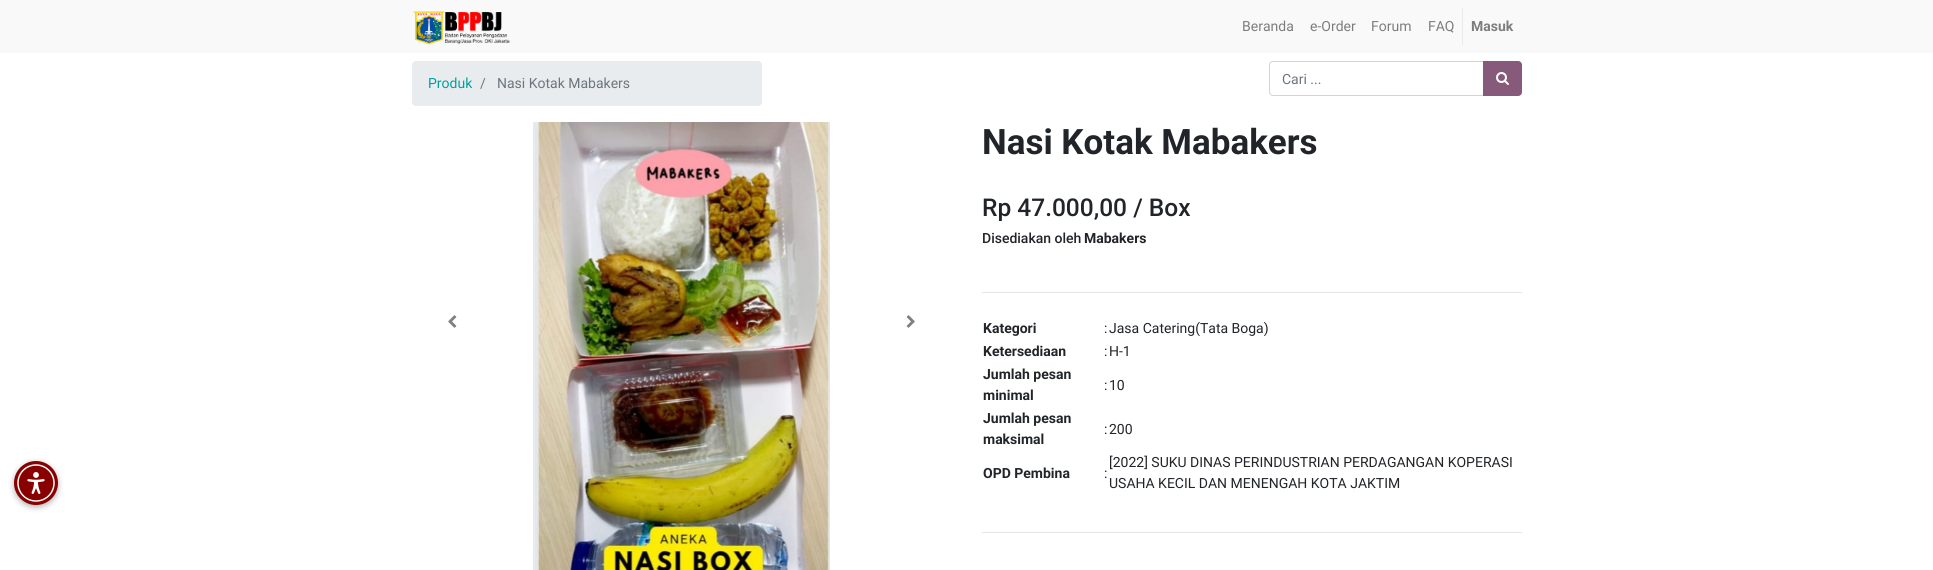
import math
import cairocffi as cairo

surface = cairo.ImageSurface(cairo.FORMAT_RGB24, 1933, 570)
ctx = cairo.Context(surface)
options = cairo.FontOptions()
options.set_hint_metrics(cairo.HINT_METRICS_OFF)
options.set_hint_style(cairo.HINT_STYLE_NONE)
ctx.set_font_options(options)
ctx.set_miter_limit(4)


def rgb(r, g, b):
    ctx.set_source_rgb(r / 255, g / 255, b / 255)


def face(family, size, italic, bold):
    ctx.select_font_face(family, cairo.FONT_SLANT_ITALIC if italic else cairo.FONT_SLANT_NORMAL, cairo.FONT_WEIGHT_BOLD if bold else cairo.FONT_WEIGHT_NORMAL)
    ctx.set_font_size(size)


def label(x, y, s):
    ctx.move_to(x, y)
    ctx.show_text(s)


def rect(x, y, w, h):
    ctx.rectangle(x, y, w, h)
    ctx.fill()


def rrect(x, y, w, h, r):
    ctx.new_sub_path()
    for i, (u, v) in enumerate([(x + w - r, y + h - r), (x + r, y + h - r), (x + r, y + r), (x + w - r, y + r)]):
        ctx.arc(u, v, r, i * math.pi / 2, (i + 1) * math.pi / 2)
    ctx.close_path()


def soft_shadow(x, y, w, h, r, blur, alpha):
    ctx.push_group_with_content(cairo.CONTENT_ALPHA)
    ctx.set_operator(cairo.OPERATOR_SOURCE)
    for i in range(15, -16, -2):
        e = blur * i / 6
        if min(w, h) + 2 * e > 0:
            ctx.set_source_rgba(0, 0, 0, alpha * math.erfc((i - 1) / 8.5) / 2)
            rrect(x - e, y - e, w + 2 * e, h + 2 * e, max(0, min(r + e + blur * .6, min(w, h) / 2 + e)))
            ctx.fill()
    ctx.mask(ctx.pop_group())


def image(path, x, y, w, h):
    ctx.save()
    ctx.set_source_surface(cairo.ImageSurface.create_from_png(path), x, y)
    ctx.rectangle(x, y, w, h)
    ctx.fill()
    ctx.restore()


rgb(255, 255, 255)
ctx.paint()
rgb(0, 0, 0)
soft_shadow(14, 463, 44, 44, 22, 3, 0.3)
rgb(136, 0, 0)
ctx.arc(36, 483, 22, 0, 2 * math.pi)
ctx.fill()
image('image0.png', 17, 464, 38, 38)
rgb(249, 249, 249)
rect(0, 0, 1933, 53)
image('image1.png', 413, 11, 97, 34)
face('Roboto', 14, 0, 0)
rgb(125, 125, 125)
label(1242, 31, 'Beranda')
label(1310, 31, 'e-Order')
label(1371, 31, 'Forum')
label(1428, 31, 'FAQ')
rgb(233, 236, 239)
rect(1462, 8, 1, 37)
face('Roboto', 14, 0, 1)
rgb(125, 125, 125)
label(1471, 31, 'Masuk')
rgb(233, 236, 239)
rrect(412, 61, 350, 45, 4)
ctx.fill()
face('Roboto', 14, 0, 0)
rgb(0, 160, 157)
label(428, 88, 'Produk')
rgb(108, 117, 125)
label(480, 88, '/')
label(497, 88, 'Nasi Kotak Mabakers')
ctx.new_path()
ctx.move_to(1273, 61.5)
ctx.line_to(1483.5, 61.5)
ctx.line_to(1483.5, 95.5)
ctx.line_to(1273, 95.5)
ctx.curve_to(1271, 95.5, 1269.5, 94, 1269.5, 92)
ctx.line_to(1269.5, 65)
ctx.curve_to(1269.5, 63, 1271, 61.5, 1273, 61.5)
ctx.close_path()
rgb(206, 212, 218)
ctx.set_line_width(1)
ctx.stroke()
rgb(108, 117, 125)
label(1282, 84, 'Cari ...')
rgb(135, 90, 123)
ctx.new_path()
ctx.move_to(1483.5, 61.5)
ctx.line_to(1518, 61.5)
ctx.curve_to(1520, 61.5, 1521.5, 63, 1521.5, 65)
ctx.line_to(1521.5, 92)
ctx.curve_to(1521.5, 94, 1520, 95.5, 1518, 95.5)
ctx.line_to(1483.5, 95.5)
ctx.close_path()
ctx.fill_preserve()
ctx.stroke()
image('image2.png', 1496, 72, 13, 13)
image('image3.png', 448, 315, 9, 13)
image('image4.png', 533, 122, 297, 448)
image('image5.png', 906, 315, 9, 13)
face('Roboto', 35, 0, 1)
rgb(33, 37, 41)
label(982, 154, 'Nasi Kotak Mabakers')
face('Roboto Medium', 24.5, 0, 0)
label(982, 216, 'Rp 47.000,00 / Box')
face('Roboto Medium', 14, 0, 0)
label(982, 243, 'Disediakan oleh')
face('Roboto', 14, 0, 1)
label(1084, 243, 'Mabakers')
rgb(230, 230, 230)
rect(982, 292, 540, 1)
rgb(33, 37, 41)
label(983, 333, 'Kategori')
face('Roboto', 14, 0, 0)
label(1104, 333, ':')
label(1109, 333, 'Jasa Catering(Tata Boga)')
face('Roboto', 14, 0, 1)
label(983, 356, 'Ketersediaan')
face('Roboto', 14, 0, 0)
label(1104, 356, ':')
label(1109, 356, 'H-1')
face('Roboto', 14, 0, 1)
label(983, 379, 'Jumlah pesan')
label(983, 400, 'minimal')
face('Roboto', 14, 0, 0)
label(1104, 390, ':')
label(1109, 390, '10')
face('Roboto', 14, 0, 1)
label(983, 423, 'Jumlah pesan')
label(983, 444, 'maksimal')
face('Roboto', 14, 0, 0)
label(1104, 434, ':')
label(1109, 434, '200')
face('Roboto', 14, 0, 1)
label(983, 478, 'OPD Pembina')
face('Roboto', 14, 0, 0)
label(1104, 478, ':')
label(1109, 467, '[2022] SUKU DINAS PERINDUSTRIAN PERDAGANGAN KOPERASI')
label(1109, 488, 'USAHA KECIL DAN MENENGAH KOTA JAKTIM')
rgb(230, 230, 230)
rect(982, 532, 540, 1)
surface.write_to_png('render.png')
